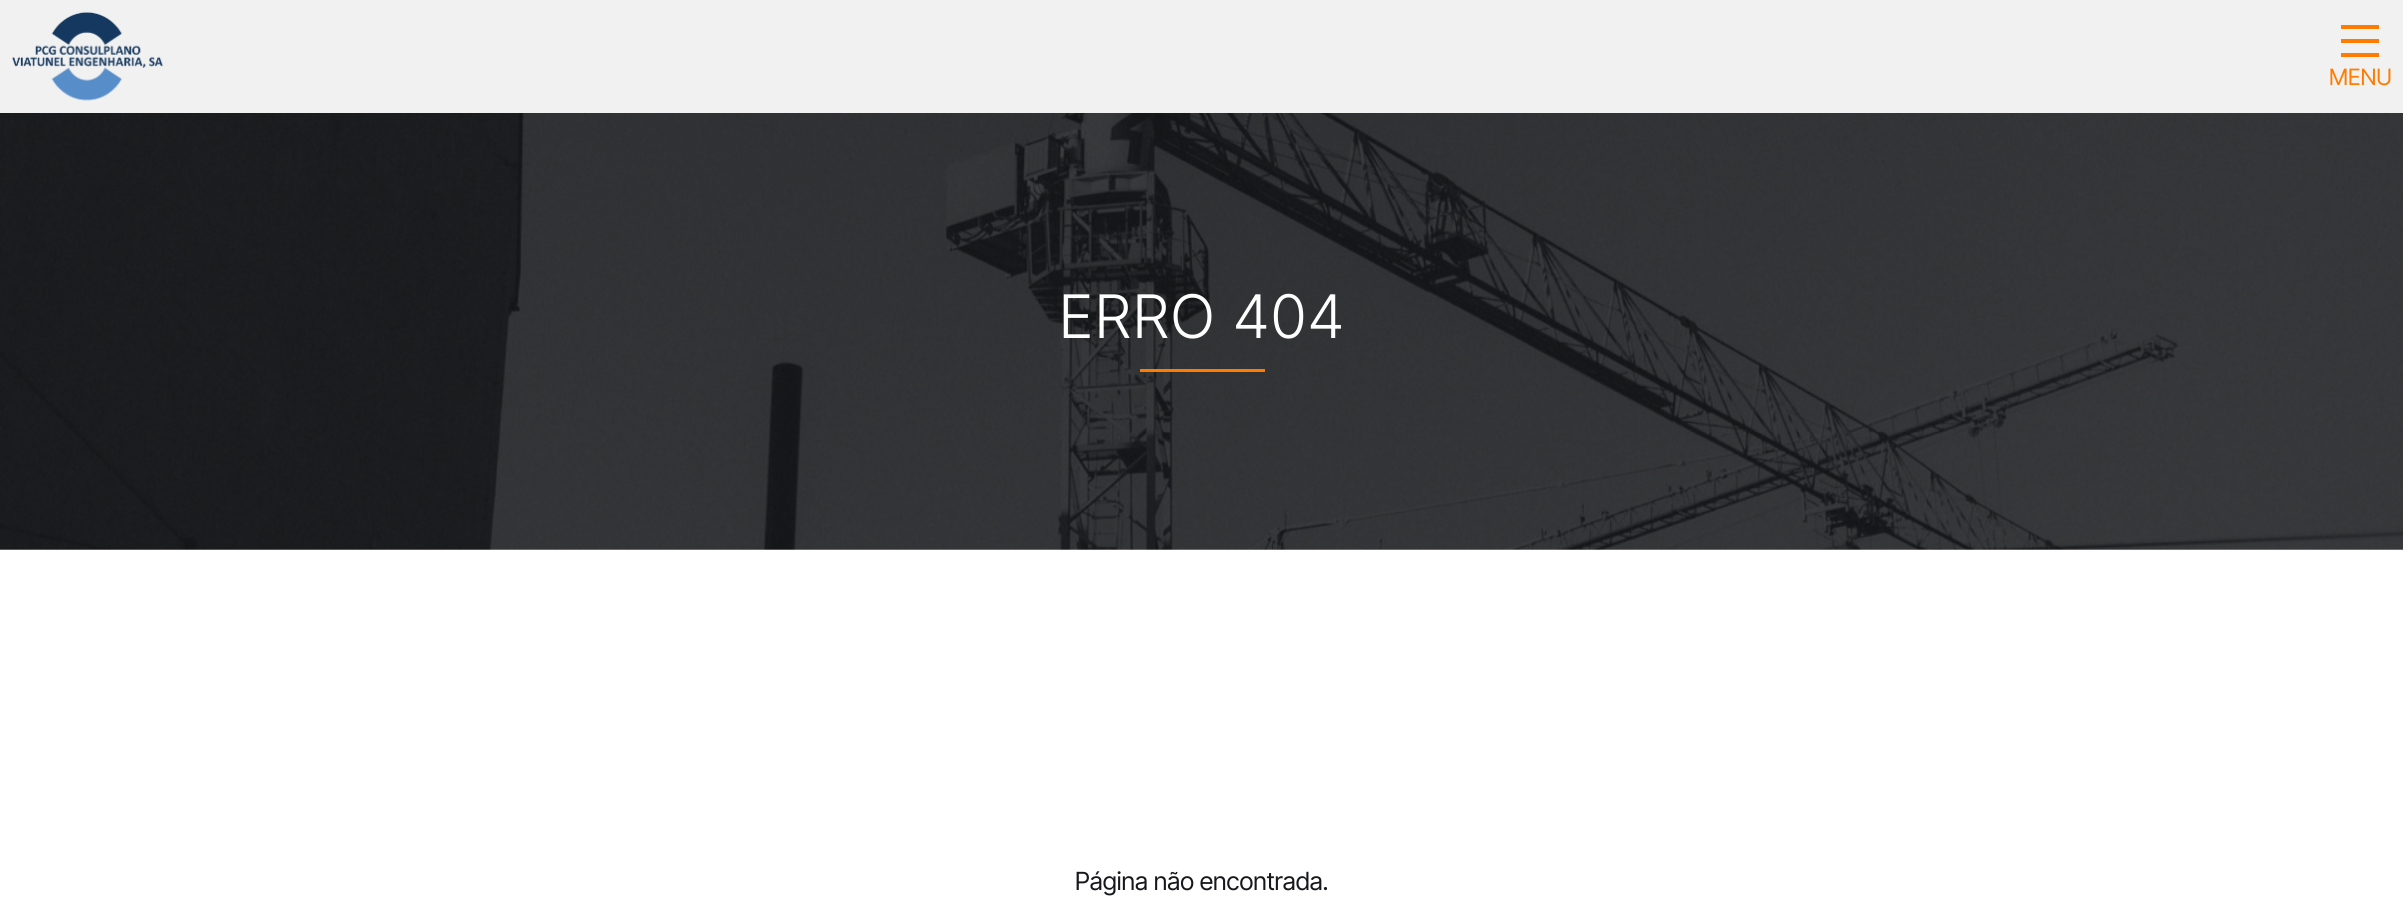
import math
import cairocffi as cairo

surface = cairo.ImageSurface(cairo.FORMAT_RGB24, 2403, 915)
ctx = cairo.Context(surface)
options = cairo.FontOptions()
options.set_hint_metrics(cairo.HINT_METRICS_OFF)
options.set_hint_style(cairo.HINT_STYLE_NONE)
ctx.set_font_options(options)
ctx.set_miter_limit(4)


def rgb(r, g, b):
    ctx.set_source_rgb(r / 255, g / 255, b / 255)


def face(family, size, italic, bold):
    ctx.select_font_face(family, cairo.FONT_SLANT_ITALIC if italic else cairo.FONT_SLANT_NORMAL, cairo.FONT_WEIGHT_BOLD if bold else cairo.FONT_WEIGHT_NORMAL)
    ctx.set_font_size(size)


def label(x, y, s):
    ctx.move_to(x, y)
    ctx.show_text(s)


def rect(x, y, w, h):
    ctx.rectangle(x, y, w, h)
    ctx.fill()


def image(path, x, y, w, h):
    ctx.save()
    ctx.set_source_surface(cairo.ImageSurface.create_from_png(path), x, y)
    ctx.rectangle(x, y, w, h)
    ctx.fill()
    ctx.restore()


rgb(255, 255, 255)
ctx.paint()
rgb(241, 241, 241)
rect(0, 0, 2403, 113)
image('image0.png', 12, 11, 152, 90)
rgb(255, 124, 0)
rect(2341, 25, 38, 4)
rect(2341, 39, 38, 4)
rect(2341, 53, 38, 4)
face('Inter Tight', 22.5, 0, 0)
label(2329, 85, 'MENU')
image('image1.png', 0, 113, 2403, 437)
face('Inter Light', 60, 0, 0)
rgb(255, 255, 255)
label(1058, 338, 'ERRO 404')
rgb(255, 124, 0)
rect(1140, 369, 125, 3)
face('Inter Tight', 25, 0, 0)
rgb(23, 24, 27)
label(1075, 890, 'Página não encontrada.')
surface.write_to_png('render.png')
